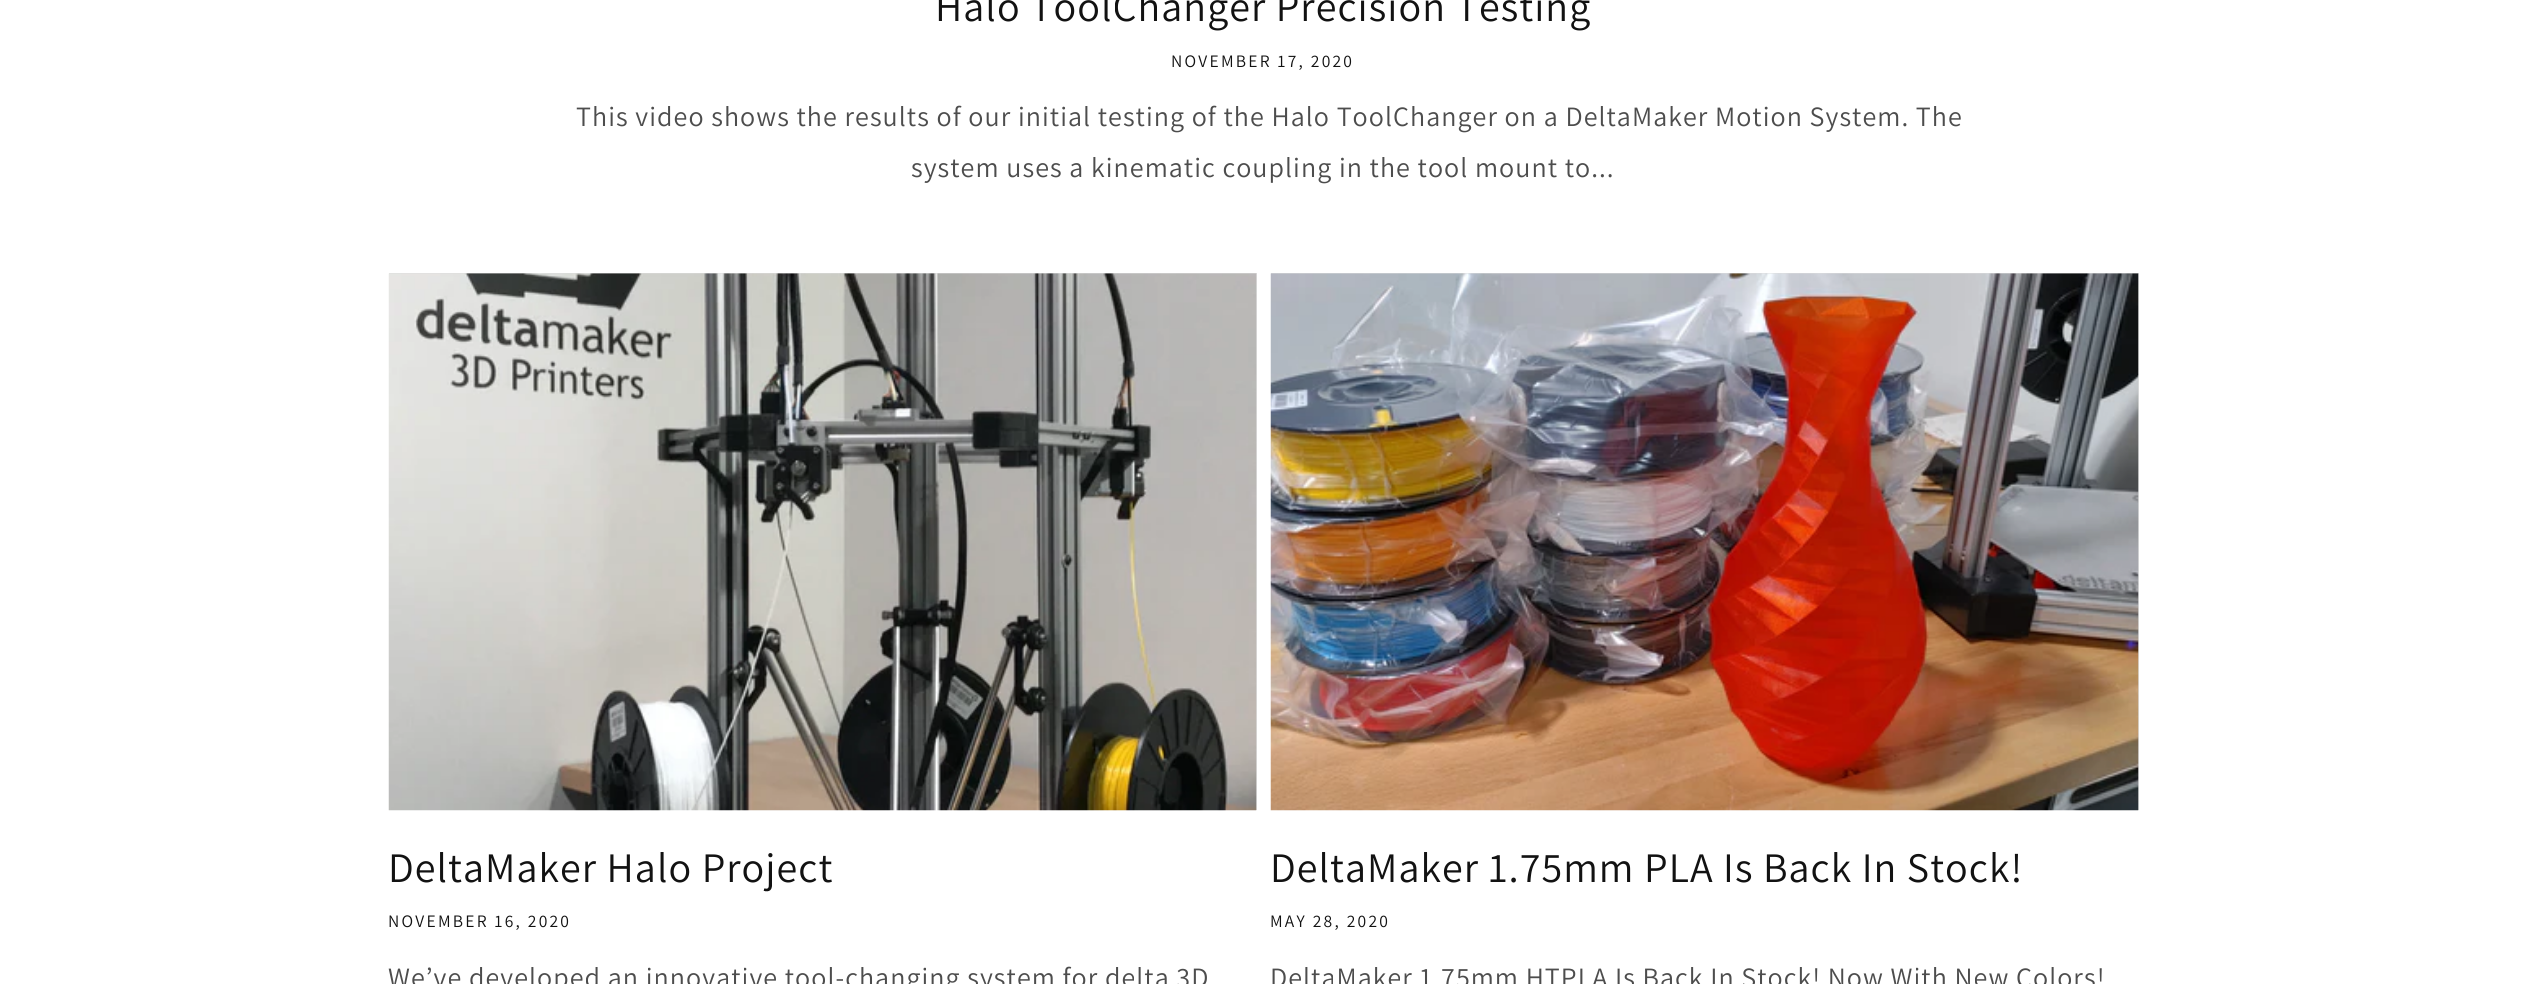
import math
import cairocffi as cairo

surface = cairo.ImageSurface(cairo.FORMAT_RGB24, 2525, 984)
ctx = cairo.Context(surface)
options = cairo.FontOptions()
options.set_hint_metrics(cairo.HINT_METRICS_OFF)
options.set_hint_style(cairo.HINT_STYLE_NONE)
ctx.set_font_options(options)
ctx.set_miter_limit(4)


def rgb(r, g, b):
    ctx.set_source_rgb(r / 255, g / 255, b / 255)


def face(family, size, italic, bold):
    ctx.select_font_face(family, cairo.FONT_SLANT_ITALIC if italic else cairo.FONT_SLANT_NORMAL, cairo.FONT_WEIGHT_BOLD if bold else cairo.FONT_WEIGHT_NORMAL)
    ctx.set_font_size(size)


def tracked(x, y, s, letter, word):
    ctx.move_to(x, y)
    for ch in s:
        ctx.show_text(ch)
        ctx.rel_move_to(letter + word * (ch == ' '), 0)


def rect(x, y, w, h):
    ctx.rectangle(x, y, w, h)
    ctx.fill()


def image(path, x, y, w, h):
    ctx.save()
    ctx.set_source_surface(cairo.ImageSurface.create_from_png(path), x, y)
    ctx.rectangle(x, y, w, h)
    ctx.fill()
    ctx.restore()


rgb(255, 255, 255)
ctx.paint()
face('Assistant', 42, 0, 0)
rgb(18, 18, 18)
tracked(935, 21, 'Halo ToolChanger Precision Testing', 1.05, 0)
face('Assistant', 17.5, 0, 0)
tracked(1171, 67, 'NOVEMBER 17, 2020', 2.25, 0)
face('Assistant', 28, 0, 0)
rgb(77, 77, 77)
tracked(576, 126, 'This video shows the results of our initial testing of the Halo ToolChanger on a DeltaMaker Motion System. The', 1.05, 0)
tracked(911, 177, 'system uses a kinematic coupling in the tool mount to...', 1.05, 0)
rgb(220, 220, 220)
rect(389, 273, 868, 537)
image('image0.png', 388, 273, 869, 538)
face('Assistant', 42, 0, 0)
rgb(18, 18, 18)
tracked(388, 882, 'DeltaMaker Halo Project', 1.05, 0)
face('Assistant', 17.5, 0, 0)
tracked(388, 927, 'NOVEMBER 16, 2020', 2.25, 0)
face('Assistant', 28, 0, 0)
rgb(77, 77, 77)
tracked(388, 987, 'We’ve developed an innovative tool-changing system for delta 3D', 1.05, 0)
rgb(220, 220, 220)
rect(1271, 273, 868, 537)
image('image1.png', 1270, 273, 869, 538)
face('Assistant', 42, 0, 0)
rgb(18, 18, 18)
tracked(1270, 882, 'DeltaMaker 1.75mm PLA Is Back In Stock!', 1.05, 0)
face('Assistant', 17.5, 0, 0)
tracked(1270, 927, 'MAY 28, 2020', 2.25, 0)
face('Assistant', 28, 0, 0)
rgb(77, 77, 77)
tracked(1270, 987, 'DeltaMaker 1.75mm HTPLA Is Back In Stock! Now With New Colors!', 1.05, 0)
surface.write_to_png('render.png')
